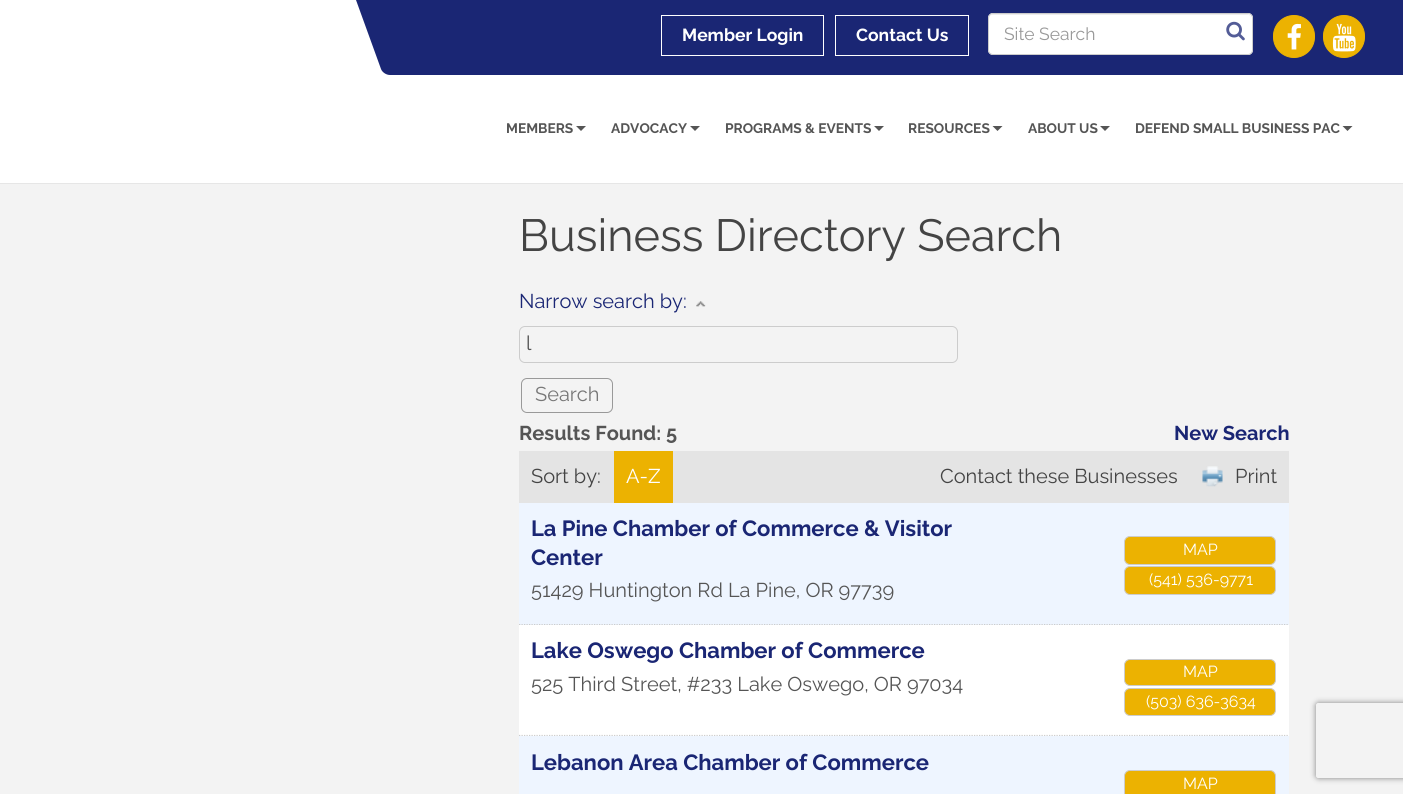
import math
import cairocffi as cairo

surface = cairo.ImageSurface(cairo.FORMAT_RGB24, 1403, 794)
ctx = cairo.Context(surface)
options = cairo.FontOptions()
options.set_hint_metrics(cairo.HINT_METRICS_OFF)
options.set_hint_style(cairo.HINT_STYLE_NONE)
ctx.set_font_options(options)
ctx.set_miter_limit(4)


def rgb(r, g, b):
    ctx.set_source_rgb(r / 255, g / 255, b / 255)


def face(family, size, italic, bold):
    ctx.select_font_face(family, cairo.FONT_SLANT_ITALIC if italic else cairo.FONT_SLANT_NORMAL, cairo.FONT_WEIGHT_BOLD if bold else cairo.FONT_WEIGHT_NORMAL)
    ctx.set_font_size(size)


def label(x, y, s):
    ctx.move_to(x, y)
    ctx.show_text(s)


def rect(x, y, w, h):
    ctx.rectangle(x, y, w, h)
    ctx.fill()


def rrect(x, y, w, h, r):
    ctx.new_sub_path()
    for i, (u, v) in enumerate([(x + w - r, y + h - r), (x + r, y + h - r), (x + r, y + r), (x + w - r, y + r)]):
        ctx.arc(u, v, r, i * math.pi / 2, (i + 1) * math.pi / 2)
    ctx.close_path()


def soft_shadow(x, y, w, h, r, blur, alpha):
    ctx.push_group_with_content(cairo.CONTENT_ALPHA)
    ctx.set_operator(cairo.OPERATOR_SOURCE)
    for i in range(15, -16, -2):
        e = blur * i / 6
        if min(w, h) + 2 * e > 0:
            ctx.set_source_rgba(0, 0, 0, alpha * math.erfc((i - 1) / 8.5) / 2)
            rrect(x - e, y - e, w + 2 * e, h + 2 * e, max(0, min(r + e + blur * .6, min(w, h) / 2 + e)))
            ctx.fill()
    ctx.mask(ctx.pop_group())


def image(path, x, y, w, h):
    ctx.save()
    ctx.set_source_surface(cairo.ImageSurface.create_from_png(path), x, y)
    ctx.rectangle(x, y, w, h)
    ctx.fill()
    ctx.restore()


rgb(243, 243, 243)
ctx.paint()
rgb(255, 255, 255)
rect(0, 0, 1403, 183)
rgb(230, 230, 230)
rect(0, 183, 1403, 1)
rgb(26, 38, 116)
ctx.new_path()
ctx.move_to(356, 0)
ctx.line_to(1353, 0)
ctx.line_to(1380, 75)
ctx.line_to(390, 75)
ctx.curve_to(386, 75, 382, 72, 381, 69)
ctx.close_path()
ctx.fill()
ctx.rectangle(661.5, 15.5, 162, 40)
rgb(255, 255, 255)
ctx.set_line_width(1)
ctx.stroke()
face('Raleway', 17.5, 0, 1)
label(682, 41, 'Member Login')
ctx.rectangle(835.5, 15.5, 133, 40)
ctx.stroke()
label(856, 41, 'Contact Us')
rrect(988, 13, 265, 42, 5)
ctx.fill()
rgb(236, 236, 236)
ctx.new_path()
ctx.move_to(992, 15)
ctx.line_to(1248, 15)
ctx.curve_to(1250, 15, 1251, 17, 1251, 19)
ctx.line_to(1251, 18)
ctx.curve_to(1251, 16, 1249, 14, 1247, 14)
ctx.line_to(993, 14)
ctx.curve_to(991, 14, 989, 16, 989, 18)
ctx.line_to(989, 19)
ctx.curve_to(989, 17, 990, 15, 992, 15)
ctx.close_path()
ctx.fill()
rrect(988.5, 13.5, 264, 41, 4.5)
rgb(204, 204, 204)
ctx.stroke()
face('Raleway', 17.5, 0, 0)
rgb(153, 153, 153)
label(1004, 40, 'Site Search')
image('image0.png', 1226, 21, 19, 20)
rgb(236, 178, 1)
rrect(1273.5, 15.5, 41, 42, 20.5)
ctx.fill_preserve()
ctx.stroke()
image('image1.png', 1287, 23, 14, 27)
rgb(26, 38, 116)
ctx.new_path()
ctx.move_to(1351, 0)
ctx.line_to(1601, 0)
ctx.line_to(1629, 75)
ctx.line_to(1379, 75)
ctx.close_path()
ctx.fill()
rgb(236, 178, 1)
rrect(1323.5, 15.5, 41, 42, 20.5)
ctx.fill_preserve()
ctx.stroke()
image('image2.png', 1332, 23, 24, 29)
face('Raleway', 13.75, 0, 1)
rgb(85, 85, 85)
label(506, 133, 'MEMBERS')
ctx.new_path()
ctx.move_to(576, 126)
ctx.line_to(586, 126)
ctx.line_to(581, 131)
ctx.close_path()
ctx.fill()
label(611, 133, 'ADVOCACY')
ctx.new_path()
ctx.move_to(690, 126)
ctx.line_to(700, 126)
ctx.line_to(695, 131)
ctx.close_path()
ctx.fill()
label(725, 133, 'PROGRAMS & EVENTS')
ctx.new_path()
ctx.move_to(874, 126)
ctx.line_to(884, 126)
ctx.line_to(879, 131)
ctx.close_path()
ctx.fill()
label(908, 133, 'RESOURCES')
ctx.new_path()
ctx.move_to(992.5, 126)
ctx.line_to(1002.5, 126)
ctx.line_to(997.5, 131)
ctx.close_path()
ctx.fill()
label(1028, 133, 'ABOUT US')
ctx.new_path()
ctx.move_to(1100, 126)
ctx.line_to(1110, 126)
ctx.line_to(1105, 131)
ctx.close_path()
ctx.fill()
label(1135, 133, 'DEFEND SMALL BUSINESS PAC')
ctx.new_path()
ctx.move_to(1342.5, 126)
ctx.line_to(1352.5, 126)
ctx.line_to(1347.5, 131)
ctx.close_path()
ctx.fill()
face('Raleway', 45, 0, 0)
rgb(68, 68, 68)
label(519, 251, 'Business Directory Search')
face('Raleway', 20, 0, 0)
rgb(26, 38, 116)
label(519, 308, 'Narrow search by:')
image('image3.png', 696, 301, 10, 6)
rrect(519.5, 326.5, 438, 36, 5.5)
rgb(204, 204, 204)
ctx.stroke()
rgb(85, 85, 85)
label(526, 350, 'l')
rrect(521.5, 378.5, 91, 34, 5.5)
rgb(153, 153, 153)
ctx.stroke()
rgb(119, 119, 119)
label(535, 401, 'Search')
face('Raleway', 20, 0, 1)
rgb(85, 85, 85)
label(519, 440, 'Results Found: 5')
rgb(26, 38, 116)
label(1174, 440, 'New Search')
rgb(228, 228, 228)
rect(519, 451, 770, 52)
face('Raleway', 20, 0, 0)
rgb(68, 68, 68)
label(531, 483, 'Sort by:')
rgb(236, 178, 1)
rect(614, 451, 59, 52)
rgb(255, 255, 255)
label(626, 483, 'A-Z')
rgb(68, 68, 68)
label(940, 483, 'Contact these Businesses')
image('image4.png', 1202, 466, 21, 21)
label(1235, 483, 'Print')
rgb(238, 245, 255)
rect(520, 624, 769, 1)
ctx.new_path()
ctx.move_to(519, 624.5)
ctx.line_to(1289, 624.5)
rgb(204, 204, 204)
ctx.set_line_width(1.2)
ctx.set_dash([1.25, 1.25])
ctx.stroke()
rgb(238, 245, 255)
rect(519, 503, 770, 121)
face('Raleway', 22, 0, 1)
rgb(26, 38, 116)
label(531, 536, 'La Pine Chamber of Commerce & Visitor')
label(531, 565, 'Center')
face('Raleway', 20, 0, 0)
rgb(85, 85, 85)
label(531, 597, '51429 Huntington Rd La Pine, OR 97739')
rgb(236, 178, 1)
rrect(1124.5, 536.5, 151, 28, 5.5)
ctx.fill_preserve()
rgb(204, 204, 204)
ctx.set_line_width(1)
ctx.set_dash([])
ctx.stroke()
face('Raleway', 16, 0, 0)
rgb(255, 255, 255)
label(1183, 555, 'MAP')
rgb(236, 178, 1)
rrect(1124.5, 566.5, 151, 28, 5.5)
ctx.fill_preserve()
rgb(204, 204, 204)
ctx.stroke()
rgb(255, 255, 255)
label(1149, 585, '(541) 536-9771')
rect(519, 625, 770, 111)
ctx.new_path()
ctx.move_to(519, 735.5)
ctx.line_to(1289, 735.5)
rgb(204, 204, 204)
ctx.set_line_width(1.2)
ctx.set_dash([1.25, 1.25])
ctx.stroke()
face('Raleway', 22, 0, 1)
rgb(26, 38, 116)
label(531, 658, 'Lake Oswego Chamber of Commerce')
face('Raleway', 20, 0, 0)
rgb(85, 85, 85)
label(531, 691, '525 Third Street, #233 Lake Oswego, OR 97034')
rgb(236, 178, 1)
rrect(1124.5, 659.5, 151, 26, 5.5)
ctx.fill_preserve()
rgb(204, 204, 204)
ctx.set_line_width(1)
ctx.set_dash([])
ctx.stroke()
face('Raleway', 16, 0, 0)
rgb(255, 255, 255)
label(1183, 677, 'MAP')
rgb(236, 178, 1)
rrect(1124.5, 688.5, 151, 27, 5.5)
ctx.fill_preserve()
rgb(204, 204, 204)
ctx.stroke()
rgb(255, 255, 255)
label(1146, 707, '(503) 636-3634')
rgb(238, 245, 255)
rect(519, 736, 770, 58)
face('Raleway', 22, 0, 1)
rgb(26, 38, 116)
label(531, 770, 'Lebanon Area Chamber of Commerce')
rgb(236, 178, 1)
rrect(1124.5, 770.5, 151, 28, 5.5)
ctx.fill_preserve()
rgb(204, 204, 204)
ctx.stroke()
face('Raleway', 16, 0, 0)
rgb(255, 255, 255)
label(1183, 789, 'MAP')
ctx.save()
ctx.set_fill_rule(cairo.FILL_RULE_EVEN_ODD)
ctx.new_path()
ctx.move_to(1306, 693)
ctx.line_to(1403, 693)
ctx.line_to(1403, 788)
ctx.line_to(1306, 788)
ctx.close_path()
ctx.move_to(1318.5, 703)
ctx.line_to(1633.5, 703)
ctx.curve_to(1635, 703, 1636, 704, 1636, 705.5)
ctx.line_to(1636, 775.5)
ctx.curve_to(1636, 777, 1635, 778, 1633.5, 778)
ctx.line_to(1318.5, 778)
ctx.curve_to(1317, 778, 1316, 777, 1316, 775.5)
ctx.line_to(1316, 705.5)
ctx.curve_to(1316, 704, 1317, 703, 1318.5, 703)
ctx.close_path()
ctx.clip()
rgb(128, 128, 128)
soft_shadow(1316, 703, 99, 75, 2.5, 3, 1)
ctx.restore()
surface.write_to_png('render.png')
